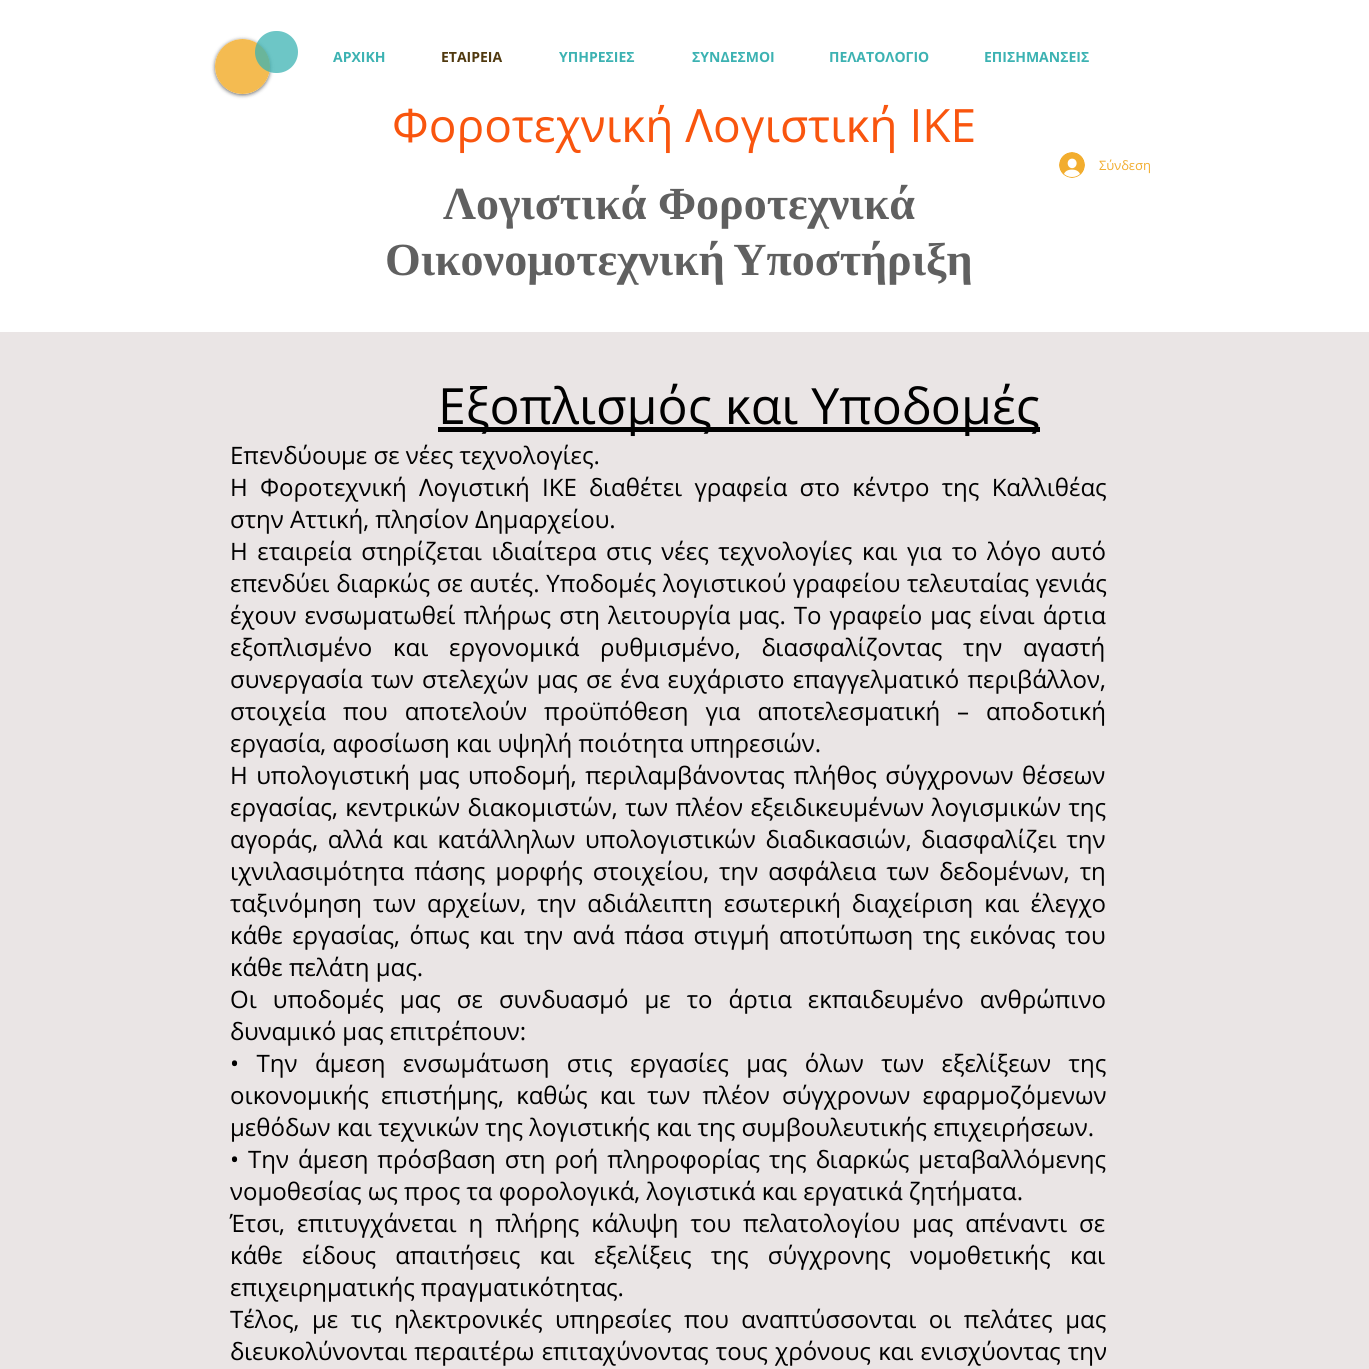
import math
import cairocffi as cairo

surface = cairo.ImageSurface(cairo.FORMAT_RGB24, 1369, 1369)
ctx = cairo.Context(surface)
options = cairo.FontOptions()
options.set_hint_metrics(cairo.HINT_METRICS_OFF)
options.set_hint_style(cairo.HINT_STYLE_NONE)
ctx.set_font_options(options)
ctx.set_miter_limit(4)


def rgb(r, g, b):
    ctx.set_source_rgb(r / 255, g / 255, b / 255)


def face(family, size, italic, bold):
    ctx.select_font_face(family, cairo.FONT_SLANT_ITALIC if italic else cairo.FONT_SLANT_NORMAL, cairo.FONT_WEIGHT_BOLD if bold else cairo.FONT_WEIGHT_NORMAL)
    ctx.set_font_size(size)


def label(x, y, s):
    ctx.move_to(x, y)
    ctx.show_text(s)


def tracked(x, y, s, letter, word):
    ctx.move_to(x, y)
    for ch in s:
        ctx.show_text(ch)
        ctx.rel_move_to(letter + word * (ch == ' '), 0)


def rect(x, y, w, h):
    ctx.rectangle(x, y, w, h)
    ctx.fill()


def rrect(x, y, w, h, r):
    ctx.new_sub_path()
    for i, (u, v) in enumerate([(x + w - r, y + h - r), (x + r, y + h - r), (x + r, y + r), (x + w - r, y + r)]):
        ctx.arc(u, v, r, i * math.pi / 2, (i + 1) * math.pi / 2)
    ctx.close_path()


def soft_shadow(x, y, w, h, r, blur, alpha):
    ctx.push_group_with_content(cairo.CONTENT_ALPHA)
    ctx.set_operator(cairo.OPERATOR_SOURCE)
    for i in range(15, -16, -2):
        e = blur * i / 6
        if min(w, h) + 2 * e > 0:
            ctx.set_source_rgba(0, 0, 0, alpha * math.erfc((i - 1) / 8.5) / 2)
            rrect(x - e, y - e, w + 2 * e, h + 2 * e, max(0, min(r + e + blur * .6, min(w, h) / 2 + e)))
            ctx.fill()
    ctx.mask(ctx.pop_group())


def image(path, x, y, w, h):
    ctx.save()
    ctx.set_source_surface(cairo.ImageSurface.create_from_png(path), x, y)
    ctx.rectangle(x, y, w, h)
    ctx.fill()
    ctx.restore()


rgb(234, 229, 229)
ctx.paint()
rgb(255, 255, 255)
rect(0, 0, 1369, 332)
ctx.save()
ctx.set_fill_rule(cairo.FILL_RULE_EVEN_ODD)
ctx.new_path()
ctx.move_to(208, 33)
ctx.line_to(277, 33)
ctx.line_to(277, 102)
ctx.line_to(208, 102)
ctx.close_path()
ctx.move_to(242.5, 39)
ctx.curve_to(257.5, 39, 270, 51.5, 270, 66.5)
ctx.curve_to(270, 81.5, 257.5, 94, 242.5, 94)
ctx.curve_to(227.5, 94, 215, 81.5, 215, 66.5)
ctx.curve_to(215, 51.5, 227.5, 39, 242.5, 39)
ctx.close_path()
ctx.clip()
rgb(0, 0, 0)
soft_shadow(215, 40, 55, 55, 27.5, 2, 0.6)
ctx.restore()
ctx.set_source_rgba(0.949, 0.678, 0.18, 0.83)
ctx.arc(242.5, 66.5, 27.5, 0, 2 * math.pi)
ctx.fill()
ctx.set_source_rgba(0.235, 0.698, 0.698, 0.75)
rrect(255, 31, 43, 42, 21)
ctx.fill()
face('Open Sans', 14, 0, 1)
rgb(60, 178, 178)
label(333, 62, 'ΑΡΧΙΚΗ')
rgb(80, 57, 15)
label(441, 62, 'ΕΤΑΙΡΕΙΑ')
rgb(60, 178, 178)
label(559, 62, 'ΥΠΗΡΕΣΙΕΣ')
label(692, 62, 'ΣΥΝΔΕΣΜΟΙ')
label(829, 62, 'ΠΕΛΑΤΟΛΟΓΙΟ')
label(984, 62, 'ΕΠΙΣΗΜΑΝΣΕΙΣ')
face('Open Sans', 46, 0, 0)
rgb(249, 85, 14)
label(392, 142, 'Φοροτεχνική Λογιστική ΙΚΕ')
image('image0.png', 1059, 152, 26, 26)
face('Open Sans', 13, 0, 0)
rgb(242, 173, 46)
label(1099, 170, 'Σύνδεση')
face('Liberation Serif', 46, 0, 1)
rgb(96, 96, 96)
label(443, 219, 'Λογιστικά Φοροτεχνικά')
tracked(385, 275, 'Οικονομοτεχνική Yποστήριξη', 0, -3)
rgb(0, 0, 0)
rect(438, 427, 602, 5)
face('Open Sans', 50, 0, 0)
label(438, 424, 'Εξοπλισμός και Υποδομές')
face('Open Sans', 24, 0, 0)
label(230, 464, 'Επενδύουμε σε νέες τεχνολογίες.')
tracked(230, 496, 'Η Φοροτεχνική Λογιστική ΙΚΕ διαθέτει γραφεία στο κέντρο της Καλλιθέας', 0, 6)
label(230, 528, 'στην Αττική, πλησίον Δημαρχείου.')
tracked(230, 560, 'Η εταιρεία στηρίζεται ιδιαίτερα στις νέες τεχνολογίες και για το λόγο αυτό', 0, 3.4)
tracked(230, 592, 'επενδύει διαρκώς σε αυτές. Υποδομές λογιστικού γραφείου τελευταίας γενιάς', 0, 0.5)
tracked(230, 624, 'έχουν ενσωματωθεί πλήρως στη λειτουργία μας. Το γραφείο μας είναι άρτια', 0, 1.75)
tracked(230, 656, 'εξοπλισμένο και εργονομικά ρυθμισμένο, διασφαλίζοντας την αγαστή', 0, 14.5)
tracked(230, 688, 'συνεργασία των στελεχών μας σε ένα ευχάριστο επαγγελματικό περιβάλλον,', 0, 2)
tracked(230, 720, 'στοιχεία που αποτελούν προϋπόθεση για αποτελεσματική – αποδοτική', 0, 10.75)
label(230, 752, 'εργασία, αφοσίωση και υψηλή ποιότητα υπηρεσιών.')
tracked(230, 784, 'Η υπολογιστική μας υποδομή, περιλαμβάνοντας πλήθος σύγχρονων θέσεων', 0, 2.25)
tracked(230, 816, 'εργασίας, κεντρικών διακομιστών, των πλέον εξειδικευμένων λογισμικών της', 0, 1.25)
tracked(230, 848, 'αγοράς, αλλά και κατάλληλων υπολογιστικών διαδικασιών, διασφαλίζει την', 0, 3.5)
tracked(230, 880, 'ιχνιλασιμότητα πάσης μορφής στοιχείου, την ασφάλεια των δεδομένων, τη', 0, 3.75)
tracked(230, 912, 'ταξινόμηση των αρχείων, την αδιάλειπτη εσωτερική διαχείριση και έλεγχο', 0, 4.75)
tracked(230, 944, 'κάθε εργασίας, όπως και την ανά πάσα στιγμή αποτύπωση της εικόνας του', 0, 3.25)
label(230, 976, 'κάθε πελάτη μας.')
tracked(230, 1008, 'Οι υποδομές μας σε συνδυασμό με το άρτια εκπαιδευμένο ανθρώπινο', 0, 9.75)
label(230, 1040, 'δυναμικό μας επιτρέπουν:')
tracked(230, 1072, '• Την άμεση ενσωμάτωση στις εργασίες μας όλων των εξελίξεων της', 0, 11.25)
tracked(230, 1104, 'οικονομικής επιστήμης, καθώς και των πλέον σύγχρονων εφαρμοζόμενων', 0, 6)
label(230, 1136, 'μεθόδων και τεχνικών της λογιστικής και της συμβουλευτικής επιχειρήσεων.')
tracked(230, 1168, '• Την άμεση πρόσβαση στη ροή πληροφορίας της διαρκώς μεταβαλλόμενης', 0, 2.75)
label(230, 1200, 'νομοθεσίας ως προς τα φορολογικά, λογιστικά και εργατικά ζητήματα.')
tracked(230, 1232, 'Έτσι, επιτυγχάνεται η πλήρης κάλυψη του πελατολογίου μας απέναντι σε', 0, 5.75)
tracked(230, 1264, 'κάθε είδους απαιτήσεις και εξελίξεις της σύγχρονης νομοθετικής και', 0, 13)
label(230, 1296, 'επιχειρηματικής πραγματικότητας.')
tracked(230, 1328, 'Τέλος, με τις ηλεκτρονικές υπηρεσίες που αναπτύσσονται οι πελάτες μας', 0, 6.25)
tracked(230, 1360, 'διευκολύνονται περαιτέρω επιταχύνοντας τους χρόνους και ενισχύοντας την', 0, 1)
surface.write_to_png('render.png')
